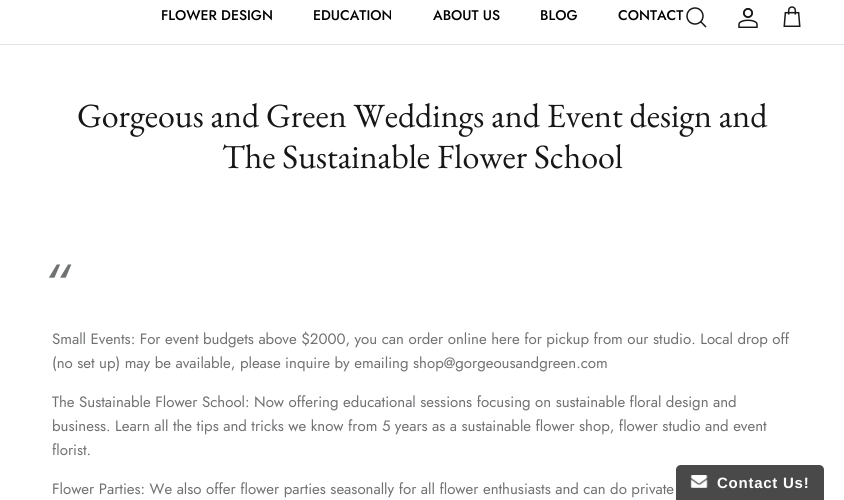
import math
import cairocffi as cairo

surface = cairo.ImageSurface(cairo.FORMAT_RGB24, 844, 500)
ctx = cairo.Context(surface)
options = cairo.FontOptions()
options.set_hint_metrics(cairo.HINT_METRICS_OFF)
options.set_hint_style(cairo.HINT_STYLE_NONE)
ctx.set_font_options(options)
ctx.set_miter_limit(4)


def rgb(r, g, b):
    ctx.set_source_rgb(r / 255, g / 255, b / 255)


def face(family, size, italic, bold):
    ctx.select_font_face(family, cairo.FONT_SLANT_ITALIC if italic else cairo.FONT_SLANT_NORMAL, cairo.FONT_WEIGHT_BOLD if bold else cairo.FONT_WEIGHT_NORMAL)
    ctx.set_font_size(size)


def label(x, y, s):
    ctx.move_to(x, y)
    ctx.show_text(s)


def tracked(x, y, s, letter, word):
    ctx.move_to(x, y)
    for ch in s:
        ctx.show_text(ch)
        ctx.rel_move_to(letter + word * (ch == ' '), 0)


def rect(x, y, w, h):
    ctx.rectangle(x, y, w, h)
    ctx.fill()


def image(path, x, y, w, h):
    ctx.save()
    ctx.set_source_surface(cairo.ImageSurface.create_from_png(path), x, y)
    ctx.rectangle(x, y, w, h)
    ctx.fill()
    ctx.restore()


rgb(255, 255, 255)
ctx.paint()
rgb(223, 227, 232)
rect(0, 44, 844, 1)
face('Jost Medium', 14, 0, 0)
rgb(0, 0, 0)
label(161, 20, 'FLOWER DESIGN')
label(313, 20, 'EDUCATION')
label(433, 20, 'ABOUT US')
label(540, 20, 'BLOG')
label(618, 20, 'CONTACT')
ctx.new_path()
ctx.arc(695, 16, 8, 0, 2 * math.pi)
rgb(23, 23, 23)
ctx.set_line_width(1.5)
ctx.stroke()
ctx.new_path()
ctx.move_to(701, 22)
ctx.line_to(705.5, 26.5)
ctx.set_line_cap(cairo.LINE_CAP_SQUARE)
ctx.stroke()
image('image0.png', 738, 8, 20, 20)
image('image1.png', 783, 6, 18, 21)
face('EB Garamond', 34, 0, 0)
label(77, 127, 'Gorgeous and Green Weddings and Event design and')
label(222, 168, 'The Sustainable Flower School')
face('Jost', 58, 1, 0)
rgb(112, 113, 115)
label(42, 305, '“')
face('Jost', 15, 0, 0)
label(52, 344, 'Small Events: For event budgets above $2000, you can order online here for pickup from our studio. Local drop off')
label(52, 368, '(no set up) may be available, please inquire by emailing shop@gorgeousandgreen.com')
label(52, 407, 'The Sustainable Flower School: Now offering educational sessions focusing on sustainable floral design and')
label(52, 431, 'business. Learn all the tips and tricks we know from 5 years as a sustainable flower shop, flower studio and event')
label(52, 455, 'florist.')
label(52, 494, 'Flower Parties: We also offer flower parties seasonally for all flower enthusiasts and can do private')
rgb(73, 73, 73)
ctx.new_path()
ctx.move_to(681, 465)
ctx.line_to(819, 465)
ctx.curve_to(822, 465, 824, 467, 824, 470)
ctx.line_to(824, 500)
ctx.line_to(676, 500)
ctx.line_to(676, 470)
ctx.curve_to(676, 467, 678, 465, 681, 465)
ctx.close_path()
ctx.fill()
image('image2.png', 690, 475, 18, 13)
face('Liberation Sans', 15, 0, 1)
rgb(255, 255, 255)
tracked(717, 488, 'Contact Us!', 0.75, 0)
surface.write_to_png('render.png')
